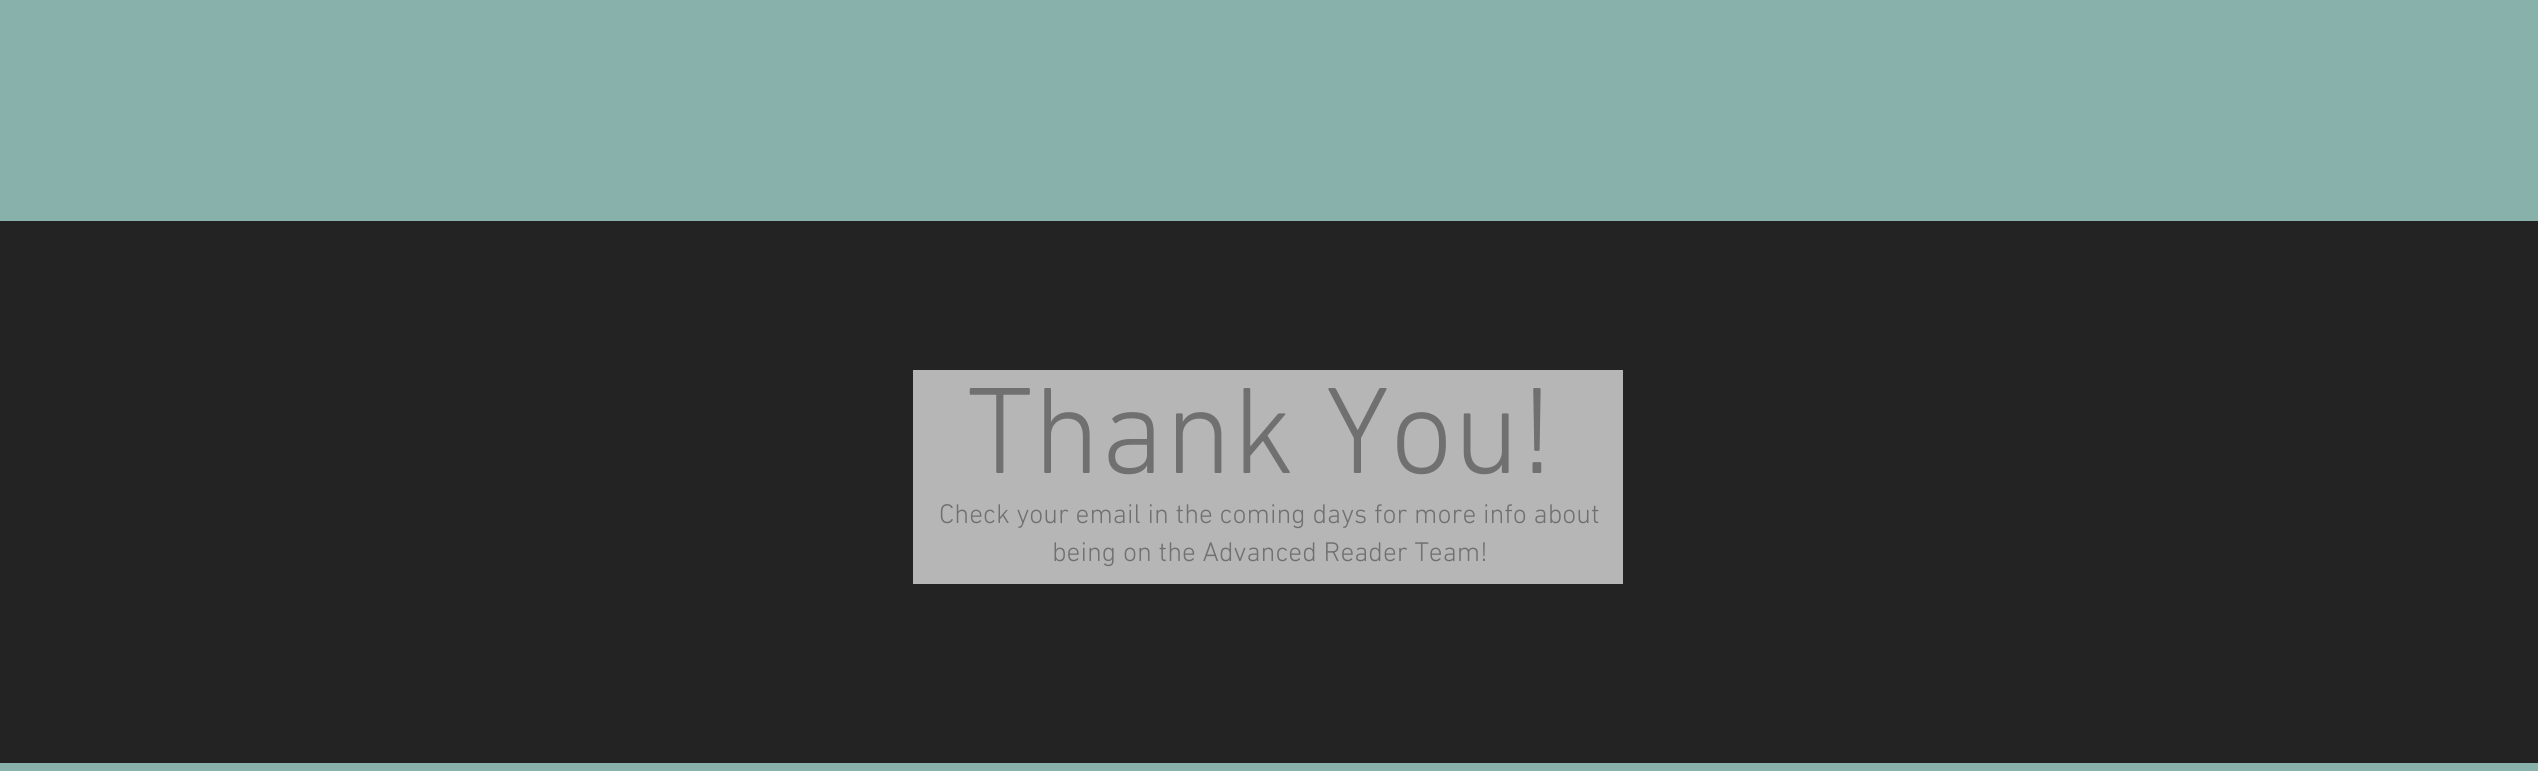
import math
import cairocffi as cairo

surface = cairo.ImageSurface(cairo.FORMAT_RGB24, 2538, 771)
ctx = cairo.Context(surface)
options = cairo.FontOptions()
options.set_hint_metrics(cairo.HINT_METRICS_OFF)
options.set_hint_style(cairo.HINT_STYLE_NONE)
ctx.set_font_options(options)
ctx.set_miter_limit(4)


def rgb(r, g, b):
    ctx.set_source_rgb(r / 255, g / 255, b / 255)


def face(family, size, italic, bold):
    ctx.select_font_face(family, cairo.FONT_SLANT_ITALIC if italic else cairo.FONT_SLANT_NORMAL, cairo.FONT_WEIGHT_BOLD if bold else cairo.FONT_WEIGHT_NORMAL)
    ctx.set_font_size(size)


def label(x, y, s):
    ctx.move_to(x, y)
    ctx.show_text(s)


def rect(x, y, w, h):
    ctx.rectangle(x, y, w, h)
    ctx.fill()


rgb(136, 177, 171)
ctx.paint()
rgb(36, 35, 35)
rect(0, 221, 2538, 542)
rgb(183, 182, 182)
rect(913, 370, 710, 214)
face('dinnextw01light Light', 125, 0, 0)
rgb(112, 112, 112)
label(967, 473, 'Thank You!')
face('dinnextw01light Light', 27.5, 0, 0)
label(939, 523, 'Check your email in the coming days for more info about')
label(1052, 561, 'being on the Advanced Reader Team!')
surface.write_to_png('render.png')
